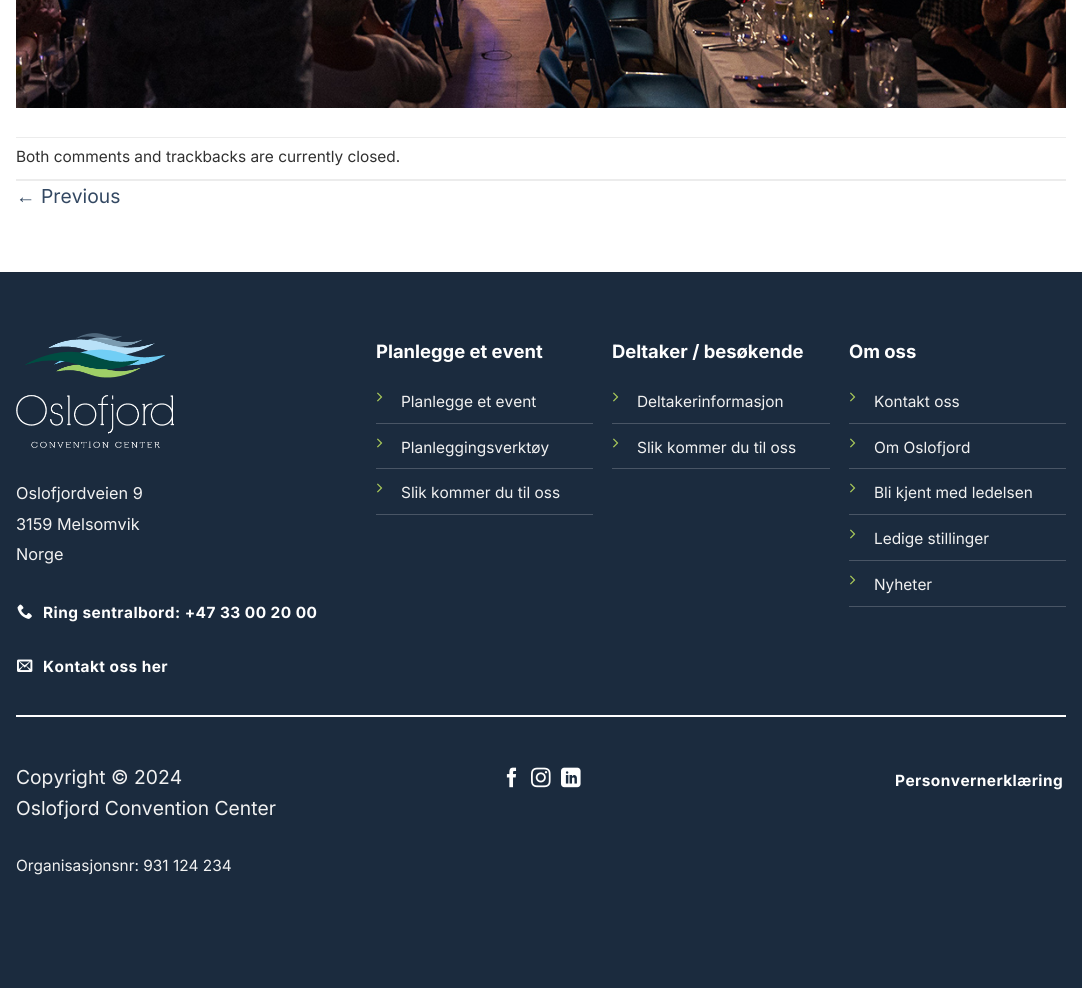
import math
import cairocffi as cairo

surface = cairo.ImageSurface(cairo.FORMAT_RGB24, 1082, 988)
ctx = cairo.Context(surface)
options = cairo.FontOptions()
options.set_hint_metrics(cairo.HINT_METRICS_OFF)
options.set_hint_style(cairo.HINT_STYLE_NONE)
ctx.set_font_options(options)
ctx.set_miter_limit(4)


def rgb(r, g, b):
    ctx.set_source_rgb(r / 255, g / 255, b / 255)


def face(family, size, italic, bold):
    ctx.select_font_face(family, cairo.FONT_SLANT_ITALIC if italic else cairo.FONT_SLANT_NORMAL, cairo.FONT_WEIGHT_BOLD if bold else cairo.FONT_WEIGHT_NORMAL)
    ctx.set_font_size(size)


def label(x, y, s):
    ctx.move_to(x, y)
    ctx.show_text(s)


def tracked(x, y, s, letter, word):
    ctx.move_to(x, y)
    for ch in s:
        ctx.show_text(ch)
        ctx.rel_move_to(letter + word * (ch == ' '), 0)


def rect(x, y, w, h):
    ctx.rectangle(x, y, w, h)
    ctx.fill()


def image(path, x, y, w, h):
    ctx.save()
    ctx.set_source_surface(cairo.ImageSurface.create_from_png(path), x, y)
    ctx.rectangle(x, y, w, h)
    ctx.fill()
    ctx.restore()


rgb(255, 255, 255)
ctx.paint()
image('image0.png', 16, 0, 1050, 108)
rgb(236, 236, 236)
rect(16, 137, 1050, 1)
rect(16, 179, 1050, 2)
face('Inter', 15.4, 0, 0)
rgb(48, 48, 48)
label(16, 162, 'Both comments and trackbacks are currently closed.')
face('Liberation Sans', 19.25, 0, 0)
rgb(51, 72, 98)
label(16, 203, '←')
face('Inter', 19.25, 0, 0)
label(41, 203, 'Previous')
rgb(27, 43, 62)
rect(0, 273, 1082, 715)
rgb(26, 41, 59)
rect(0, 272, 1082, 1)
image('image1.png', 16, 333, 158, 115)
face('Inter', 16.25, 0, 0)
rgb(241, 241, 241)
label(16, 499, 'Oslofjordveien 9')
label(16, 530, '3159 Melsomvik')
label(16, 560, 'Norge')
image('image2.png', 17, 604, 15, 15)
face('Inter', 15.4, 0, 1)
rgb(255, 255, 255)
tracked(43, 618, 'Ring sentralbord: +47 33 00 20 00', 0.45, 0)
image('image3.png', 17, 659, 16, 13)
tracked(43, 672, 'Kontakt oss her', 0.45, 0)
face('Inter', 18.4, 0, 1)
label(376, 358, 'Planlegge et event')
rgb(73, 85, 101)
rect(376, 423, 217, 1)
image('image4.png', 377, 392, 6, 10)
face('Inter', 15.4, 0, 0)
rgb(241, 241, 241)
label(401, 407, 'Planlegge et event')
rgb(73, 85, 101)
rect(376, 468, 217, 1)
image('image4.png', 377, 438, 6, 10)
rgb(241, 241, 241)
label(401, 453, 'Planleggingsverktøy')
rgb(73, 85, 101)
rect(376, 514, 217, 1)
image('image4.png', 377, 483, 6, 10)
rgb(241, 241, 241)
label(401, 498, 'Slik kommer du til oss')
face('Inter', 18.4, 0, 1)
rgb(255, 255, 255)
label(612, 358, 'Deltaker / besøkende')
rgb(73, 85, 101)
rect(612, 423, 218, 1)
image('image4.png', 613, 392, 6, 10)
face('Inter', 15.4, 0, 0)
rgb(241, 241, 241)
label(637, 407, 'Deltakerinformasjon')
rgb(73, 85, 101)
rect(612, 468, 218, 1)
image('image4.png', 613, 438, 6, 10)
rgb(241, 241, 241)
label(637, 453, 'Slik kommer du til oss')
face('Inter', 18.4, 0, 1)
rgb(255, 255, 255)
label(849, 358, 'Om oss')
rgb(73, 85, 101)
rect(849, 423, 217, 1)
image('image4.png', 850, 392, 6, 10)
face('Inter', 15.4, 0, 0)
rgb(241, 241, 241)
label(874, 407, 'Kontakt oss')
rgb(73, 85, 101)
rect(849, 468, 217, 1)
image('image4.png', 850, 438, 6, 10)
rgb(241, 241, 241)
label(874, 453, 'Om Oslofjord')
rgb(73, 85, 101)
rect(849, 514, 217, 1)
image('image4.png', 850, 483, 6, 10)
rgb(241, 241, 241)
label(874, 498, 'Bli kjent med ledelsen')
rgb(73, 85, 101)
rect(849, 560, 217, 1)
image('image4.png', 850, 529, 6, 10)
rgb(241, 241, 241)
label(874, 544, 'Ledige stillinger')
rgb(73, 85, 101)
rect(849, 606, 217, 1)
image('image4.png', 850, 575, 6, 10)
rgb(241, 241, 241)
label(874, 590, 'Nyheter')
rgb(255, 255, 255)
rect(16, 715, 1050, 2)
face('Inter', 19.25, 0, 0)
rgb(241, 241, 241)
label(16, 784, 'Copyright © 2024')
label(16, 815, 'Oslofjord Convention Center')
face('Inter', 15.4, 0, 0)
label(16, 871, 'Organisasjonsnr: 931 124 234')
image('image5.png', 506, 767, 11, 21)
image('image6.png', 531, 767, 20, 21)
image('image7.png', 561, 767, 20, 21)
face('Inter', 15.4, 0, 1)
rgb(255, 255, 255)
tracked(895, 786, 'Personvernerklæring', 0.45, 0)
surface.write_to_png('render.png')
